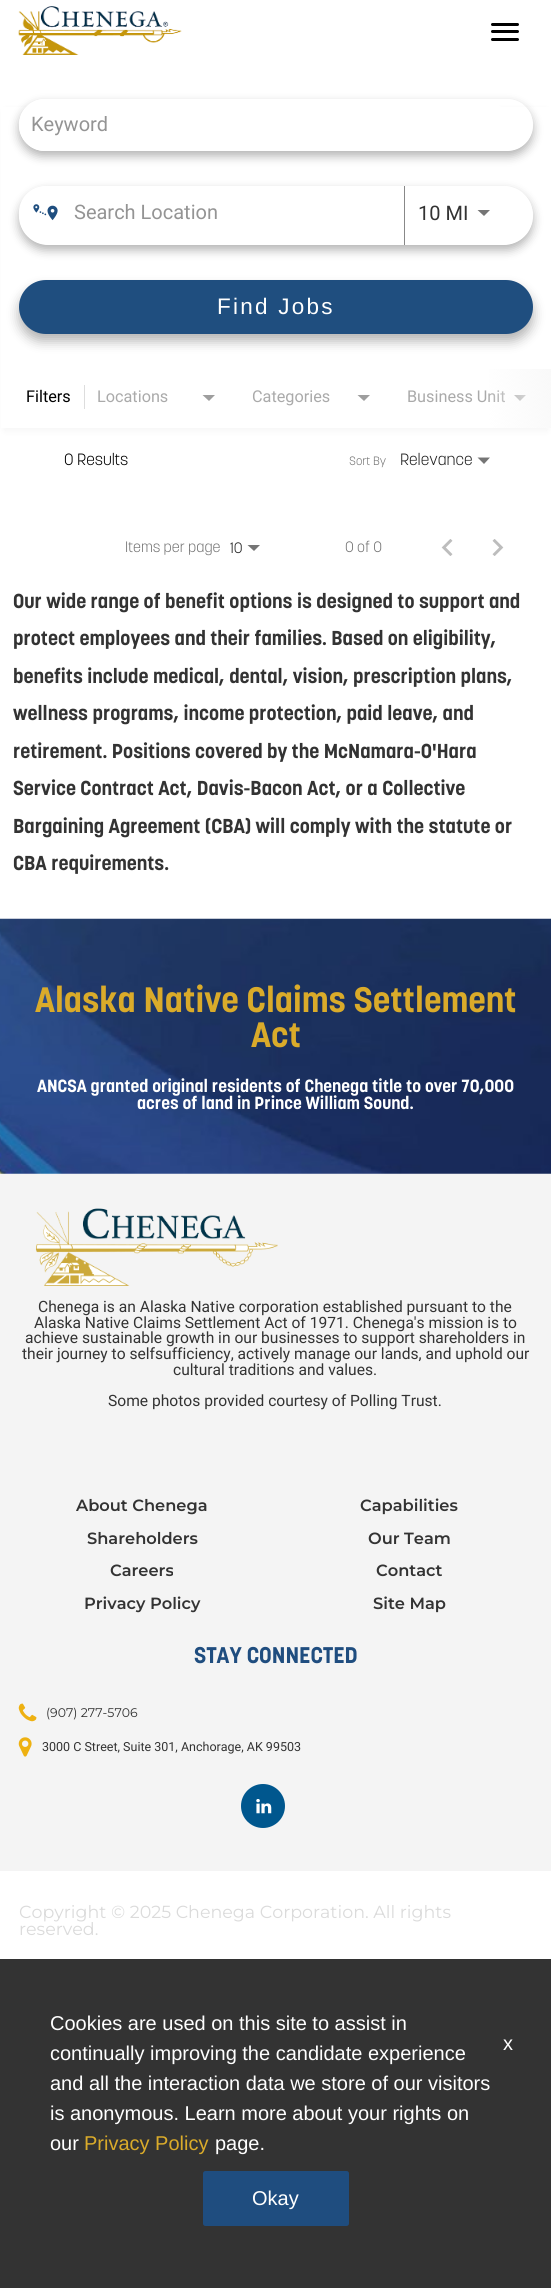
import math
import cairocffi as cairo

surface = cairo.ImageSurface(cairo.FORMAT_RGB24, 551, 2288)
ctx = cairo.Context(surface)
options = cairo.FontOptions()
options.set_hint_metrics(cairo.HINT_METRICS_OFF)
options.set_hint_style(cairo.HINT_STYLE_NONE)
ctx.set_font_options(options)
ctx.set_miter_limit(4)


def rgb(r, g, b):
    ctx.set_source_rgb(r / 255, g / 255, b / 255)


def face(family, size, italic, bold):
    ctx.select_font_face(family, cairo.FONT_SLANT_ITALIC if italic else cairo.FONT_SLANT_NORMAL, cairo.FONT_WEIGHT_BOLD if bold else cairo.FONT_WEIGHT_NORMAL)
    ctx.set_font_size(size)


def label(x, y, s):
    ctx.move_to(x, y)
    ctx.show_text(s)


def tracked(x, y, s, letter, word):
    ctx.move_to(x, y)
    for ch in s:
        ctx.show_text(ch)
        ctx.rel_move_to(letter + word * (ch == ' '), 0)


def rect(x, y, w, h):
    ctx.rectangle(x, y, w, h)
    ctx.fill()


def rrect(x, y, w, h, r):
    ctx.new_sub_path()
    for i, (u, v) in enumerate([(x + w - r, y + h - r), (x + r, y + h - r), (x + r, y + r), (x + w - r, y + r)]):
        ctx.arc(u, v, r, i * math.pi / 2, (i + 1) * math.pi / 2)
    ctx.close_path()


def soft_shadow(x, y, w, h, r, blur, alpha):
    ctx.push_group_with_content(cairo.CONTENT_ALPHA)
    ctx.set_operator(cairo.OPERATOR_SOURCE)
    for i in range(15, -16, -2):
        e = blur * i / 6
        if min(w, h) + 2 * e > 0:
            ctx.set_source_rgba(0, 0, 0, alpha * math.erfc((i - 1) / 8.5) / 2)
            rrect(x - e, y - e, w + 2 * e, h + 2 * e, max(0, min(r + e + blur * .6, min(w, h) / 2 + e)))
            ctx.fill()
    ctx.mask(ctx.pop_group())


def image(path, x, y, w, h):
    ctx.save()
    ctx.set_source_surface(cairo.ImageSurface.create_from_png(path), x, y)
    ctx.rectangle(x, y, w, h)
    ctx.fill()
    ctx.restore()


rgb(255, 255, 255)
ctx.paint()
image('image0.png', 18, 6, 164, 49)
rgb(0, 0, 0)
rrect(491, 23, 28, 3, 1.5)
ctx.fill()
rrect(491, 30, 28, 3, 1.5)
ctx.fill()
rrect(491, 38, 28, 3, 1.5)
ctx.fill()
rgb(0, 0, 0)
soft_shadow(4, 110, 544, 321, 0, 4, 0.04)
rgb(255, 255, 255)
rect(1, 107, 550, 321)
ctx.save()
ctx.set_fill_rule(cairo.FILL_RULE_EVEN_ODD)
ctx.new_path()
ctx.move_to(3, 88)
ctx.line_to(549, 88)
ctx.line_to(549, 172)
ctx.line_to(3, 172)
ctx.close_path()
ctx.move_to(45, 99)
ctx.line_to(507, 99)
ctx.curve_to(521.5, 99, 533, 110.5, 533, 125)
ctx.curve_to(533, 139.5, 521.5, 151, 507, 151)
ctx.line_to(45, 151)
ctx.curve_to(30.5, 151, 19, 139.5, 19, 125)
ctx.curve_to(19, 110.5, 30.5, 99, 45, 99)
ctx.close_path()
ctx.clip()
rgb(0, 0, 0)
soft_shadow(19, 104, 514, 52, 26, 5, 0.3)
ctx.restore()
rrect(19, 99, 489, 52, 26)
ctx.fill()
face('Roboto', 20, 0, 0)
rgb(148, 148, 148)
label(31, 131, 'Keyword')
ctx.save()
ctx.set_fill_rule(cairo.FILL_RULE_EVEN_ODD)
ctx.new_path()
ctx.move_to(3, 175)
ctx.line_to(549, 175)
ctx.line_to(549, 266)
ctx.line_to(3, 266)
ctx.close_path()
ctx.move_to(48.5, 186)
ctx.line_to(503.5, 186)
ctx.curve_to(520, 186, 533, 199, 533, 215.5)
ctx.curve_to(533, 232, 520, 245, 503.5, 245)
ctx.line_to(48.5, 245)
ctx.curve_to(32, 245, 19, 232, 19, 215.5)
ctx.curve_to(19, 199, 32, 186, 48.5, 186)
ctx.close_path()
ctx.clip()
rgb(0, 0, 0)
soft_shadow(19, 191, 514, 59, 29.5, 5, 0.3)
ctx.restore()
rgb(255, 255, 255)
rrect(19, 186, 375, 53, 26.5)
ctx.fill()
image('image1.png', 33, 204, 25, 17)
rgb(148, 148, 148)
label(74, 219, 'Search Location')
rgb(255, 255, 255)
ctx.new_path()
ctx.move_to(404, 186)
ctx.line_to(478.5, 186)
ctx.curve_to(495, 186, 508, 199, 508, 215.5)
ctx.curve_to(508, 232, 495, 245, 478.5, 245)
ctx.line_to(404, 245)
ctx.close_path()
ctx.fill()
rgb(136, 136, 136)
rect(404, 186, 1, 59)
rgb(51, 51, 51)
label(418, 220, '10 MI')
rgb(117, 117, 117)
ctx.new_path()
ctx.move_to(477.5, 210)
ctx.line_to(490, 210)
ctx.line_to(484, 216)
ctx.close_path()
ctx.fill()
rgb(0, 0, 0)
soft_shadow(19, 288, 514, 53, 26.5, 6, 0.3)
rgb(31, 78, 127)
rrect(19, 280, 514, 54, 27)
ctx.fill()
face('Liberation Sans', 22.5, 0, 0)
rgb(255, 255, 255)
tracked(217, 314, 'Find Jobs', 2.25, 0)
rgb(221, 221, 221)
rect(84, 385, 1, 24)
face('Roboto', 16.25, 0, 0)
rgb(0, 0, 0)
label(26, 402, 'Filters')
rgb(170, 170, 170)
label(97, 402, 'Locations')
rgb(158, 158, 158)
ctx.new_path()
ctx.move_to(202.5, 395)
ctx.line_to(215, 395)
ctx.line_to(209, 401)
ctx.close_path()
ctx.fill()
rgb(170, 170, 170)
label(252, 402, 'Categories')
rgb(158, 158, 158)
ctx.new_path()
ctx.move_to(357.5, 395)
ctx.line_to(370, 395)
ctx.line_to(364, 401)
ctx.close_path()
ctx.fill()
rgb(170, 170, 170)
label(407, 402, 'Business Unit')
rgb(158, 158, 158)
ctx.new_path()
ctx.move_to(514, 395)
ctx.line_to(526, 395)
ctx.line_to(520, 401)
ctx.close_path()
ctx.fill()
gradient = cairo.LinearGradient(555, 392, 485, 404)
gradient.add_color_stop_rgba(0, 0.008, 0, 0.141, 1)
gradient.add_color_stop_rgba(0, 0.976, 0.976, 0.976, 1)
gradient.add_color_stop_rgba(1, 0.976, 0.976, 0.976, 0)
ctx.set_source(gradient)
rect(489, 369, 62, 59)
face('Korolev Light', 16.25, 0, 0)
rgb(0, 0, 0)
label(64, 465, '0 Results')
face('Korolev Light', 12, 0, 0)
rgb(117, 117, 117)
label(349, 465, 'Sort By')
face('Korolev Light', 16.25, 0, 0)
rgb(33, 33, 33)
label(400, 465, 'Relevance')
rgb(117, 117, 117)
ctx.new_path()
ctx.move_to(477.5, 457.5)
ctx.line_to(490, 457.5)
ctx.line_to(484, 464)
ctx.close_path()
ctx.fill()
face('Korolev Light', 15, 0, 0)
label(125, 552, 'Items per page')
rgb(33, 33, 33)
label(230, 553, '10')
rgb(117, 117, 117)
ctx.new_path()
ctx.move_to(247.5, 545)
ctx.line_to(260, 545)
ctx.line_to(254, 551)
ctx.close_path()
ctx.fill()
label(345, 552, '0 of 0')
image('image2.png', 441, 539, 12, 17)
image('image3.png', 492, 539, 12, 17)
face('Korolev', 20, 0, 1)
rgb(51, 51, 51)
label(13, 608, 'Our wide range of benefit options is designed to support and')
label(13, 645, 'protect employees and their families. Based on eligibility,')
label(13, 683, 'benefits include medical, dental, vision, prescription plans,')
label(13, 720, 'wellness programs, income protection, paid leave, and')
label(13, 758, 'retirement. Positions covered by the McNamara-O\'Hara')
label(13, 795, 'Service Contract Act, Davis-Bacon Act, or a Collective')
label(13, 833, 'Bargaining Agreement (CBA) will comply with the statute or')
label(13, 870, 'CBA requirements.')
image('image4.png', 0, 918, 551, 256)
face('Korolev', 35, 0, 1)
rgb(218, 171, 42)
label(35, 1012, 'Alaska Native Claims Settlement')
label(251, 1047, 'Act')
face('Korolev', 17.5, 0, 1)
rgb(255, 255, 255)
label(37, 1092, 'ANCSA granted original residents of Chenega title to over 70,000')
label(137, 1109, 'acres of land in Prince William Sound.')
rgb(244, 244, 244)
rect(0, 1174, 551, 697)
image('image5.png', 35, 1208, 243, 78)
face('Roboto', 15.6, 0, 0)
rgb(51, 51, 51)
label(38, 1312, 'Chenega is an Alaska Native corporation established pursuant to the')
label(34, 1328, 'Alaska Native Claims Settlement Act of 1971. Chenega\'s mission is to')
label(25, 1343, 'achieve sustainable growth in our businesses to support shareholders in')
label(22, 1359, 'their journey to selfsufficiency, actively manage our lands, and uphold our')
label(173, 1375, 'cultural traditions and values.')
label(108, 1406, 'Some photos provided courtesy of Polling Trust.')
face('Montserrat SemiBold', 16.25, 0, 0)
label(76, 1511, 'About Chenega')
label(360, 1511, 'Capabilities')
label(87, 1544, 'Shareholders')
label(368, 1544, 'Our Team')
label(110, 1576, 'Careers')
label(376, 1576, 'Contact')
label(84, 1609, 'Privacy Policy')
label(373, 1609, 'Site Map')
face('Korolev', 22.5, 0, 1)
rgb(31, 77, 127)
label(194, 1663, 'STAY CONNECTED')
image('image6.png', 18, 1703, 19, 19)
face('Montserrat', 12.5, 0, 0)
rgb(51, 51, 51)
label(46, 1717, '(907) 277-5706')
image('image7.png', 18, 1737, 14, 20)
face('Roboto', 12.5, 0, 0)
label(42, 1751, '3000 C Street, Suite 301, Anchorage, AK 99503')
rgb(0, 87, 142)
ctx.new_path()
ctx.arc(263, 1806, 22, 0, 2 * math.pi)
ctx.fill()
image('image8.png', 256, 1799, 16, 15)
face('Montserrat', 17.5, 0, 0)
rgb(219, 219, 219)
label(19, 1918, 'Copyright © 2025 Chenega Corporation. All rights')
label(19, 1935, 'reserved.')
rgb(51, 51, 51)
rect(0, 1959, 551, 329)
face('Liberation Sans', 20, 0, 0)
rgb(255, 255, 255)
label(50, 2030, 'Cookies are used on this site to assist in')
label(50, 2060, 'continually improving the candidate experience')
label(50, 2090, 'and all the interaction data we store of our visitors')
label(50, 2120, 'is anonymous. Learn more about your rights on')
label(50, 2150, 'our')
rgb(218, 171, 42)
label(84, 2150, 'Privacy Policy')
rgb(255, 255, 255)
label(215, 2150, 'page.')
rgb(31, 77, 127)
rrect(203, 2171, 146, 55, 2.5)
ctx.fill()
rgb(255, 255, 255)
label(252, 2205, 'Okay')
label(503, 2050, 'x')
surface.write_to_png('render.png')
